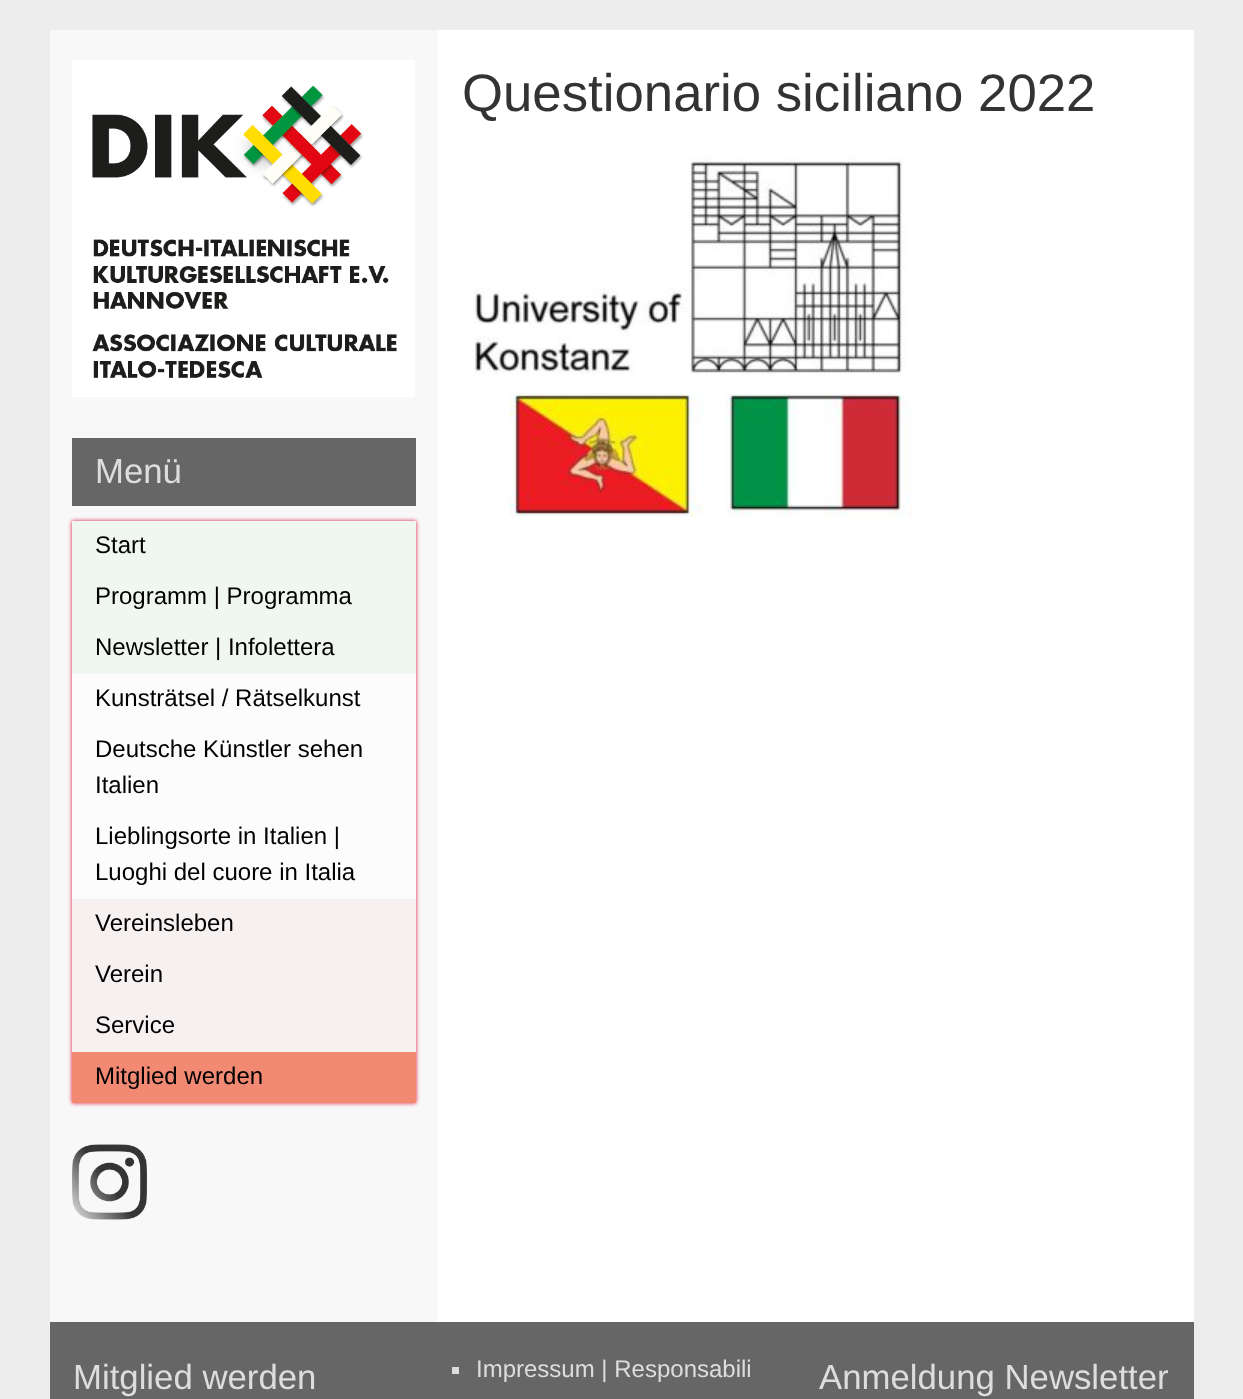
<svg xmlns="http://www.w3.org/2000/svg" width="1243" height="1399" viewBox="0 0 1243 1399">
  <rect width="100%" height="100%" fill="#ededed"/>
  <path d="M438 30h756v1292H438z" fill="#fff"/>
  <image x="474" y="156" width="438" height="362" href="img/1.png"/>
  <path d="M50 30h388v1292H50z" fill="#f8f8f8"/>
  <image x="72" y="60" width="343" height="337" href="img/2.png"/>
  <path d="M72 438h344v68H72z" fill="#666"/>
  <path d="M72 521h344v582H72z" fill="#dc143c" filter="blur(2px)"/>
  <path d="M72 521h344v153H72z" fill="#f0f7f0"/>
  <path d="M72 674h344v225H72z" fill="#fcfcfc"/>
  <path d="M72 899h344v153H72z" fill="#f7f0f0"/>
  <path d="M72 1052h344v51H72z" fill="#f18973"/>
  <image x="72" y="1144" width="75" height="76" href="img/3.png"/>
  <path d="M50 1322h1144v77H50z" fill="#666"/>
  <path d="M452 1367h7v7H452z" fill="#ddd"/>
  <text x="462" y="111" font-family="Liberation Sans" font-size="52.75" fill="#333">Questionario siciliano 2022</text>
  <text x="95" y="483" font-family="Liberation Sans" font-size="34.75" fill="#ddd">Menü</text>
  <g font-family="Liberation Sans" font-size="24" fill="#000">
    <text x="95" y="553">Start</text>
    <text x="95" y="604">Programm | Programma</text>
    <text x="95" y="655">Newsletter | Infolettera</text>
    <text x="95" y="706">Kunsträtsel / Rätselkunst</text>
    <text x="95" y="757">Deutsche Künstler sehen</text>
    <text x="95" y="793">Italien</text>
    <text x="95" y="844">Lieblingsorte in Italien |</text>
    <text x="95" y="880">Luoghi del cuore in Italia</text>
    <text x="95" y="931">Vereinsleben</text>
    <text x="95" y="982">Verein</text>
    <text x="95" y="1033">Service</text>
    <text x="95" y="1084">Mitglied werden</text>
  </g>
  <text x="73" y="1389" font-family="Liberation Sans" font-size="34.75" fill="#ddd">Mitglied werden</text>
  <text x="476" y="1377" font-family="Liberation Sans" font-size="24" fill="#ddd">Impressum | Responsabili</text>
  <text x="819" y="1389" font-family="Liberation Sans" font-size="34.75" fill="#ddd">Anmeldung Newsletter</text>
</svg>
